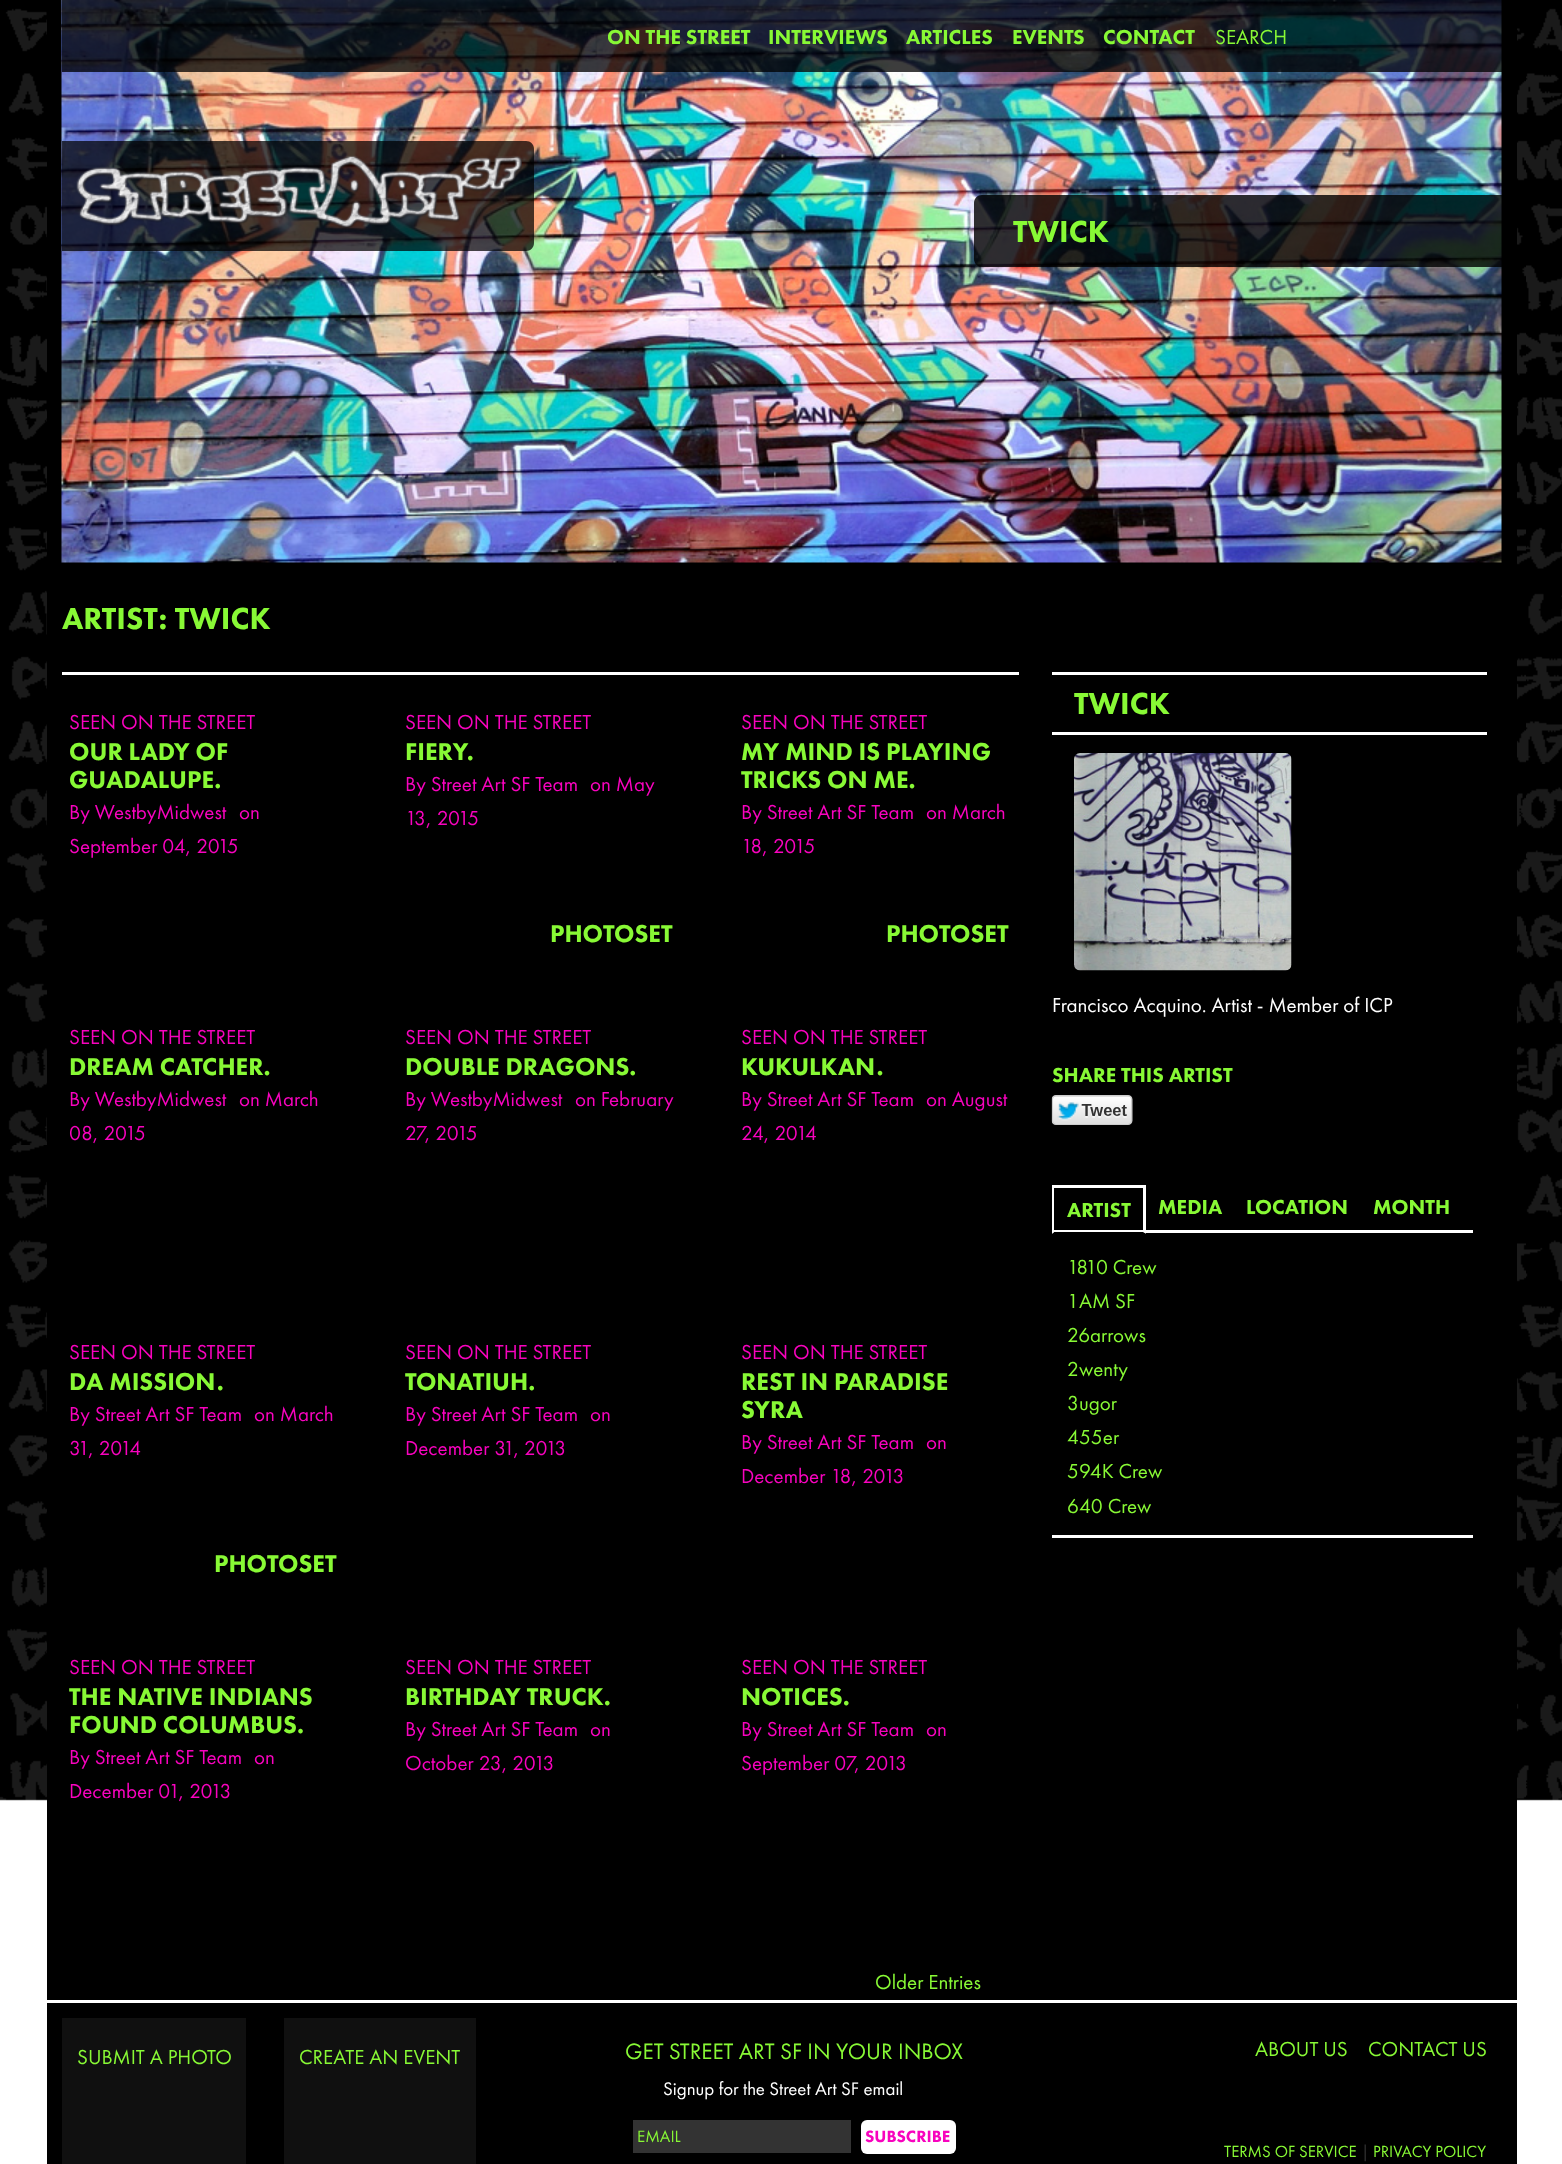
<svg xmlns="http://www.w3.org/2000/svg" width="1562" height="2164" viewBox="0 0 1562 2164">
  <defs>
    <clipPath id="clip1"><path d="M608 0h606v74H608z"/></clipPath>
  </defs>
  <rect width="100%" height="100%" fill="#fff"/>
  <image x="0" y="0" width="1562" height="1801" href="img/1.png"/>
  <path d="M47 5h1470v1995H47z" fill="#000"/>
  <image x="61" y="0" width="1441" height="563" href="img/2.png"/>
  <path d="M62 0h1440v72H62z" fill="#000000c2"/>
  <path d="M62 141H526C530.5 141 534 144.5 534 149V243C534 247.5 530.5 251 526 251H62Z" fill="#000000b8"/>
  <image x="76" y="155" width="446" height="73" href="img/3.png"/>
  <path d="M982 195H1502V267H982C977.5 267 974 263.5 974 259V203C974 198.5 977.5 195 982 195Z" fill="#000000cf"/>
  <path d="M62 672h957v3H62z" fill="#fff"/>
  <path d="M1052 672h435v3H1052z" fill="#fff"/>
  <path d="M1052 732h435v3H1052z" fill="#fff"/>
  <image x="1074" y="753" width="218" height="218" href="img/4.png"/>
  <image x="1051" y="1095" width="82" height="30" href="img/5.png"/>
  <path d="M1052 1230h421v3H1052z" fill="#fff"/>
  <path d="M1052 1185h94v3H1052z" fill="#fff"/>
  <path d="M1146 1185V1234L1143 1232V1188Z" fill="#fff"/>
  <path d="M1146 1234H1052L1054 1232H1143Z" fill="#000"/>
  <path d="M1052 1234V1185L1054 1188V1232Z" fill="#fff"/>
  <path d="M1052 1535h421v3H1052z" fill="#fff"/>
  <path d="M47 2003h1470v161H47z" fill="#000"/>
  <path d="M62 2018h184v146H62z" fill="#101010"/>
  <path d="M284 2018h192v146H284z" fill="#101010"/>
  <path d="M633 2120h218v33H633z" fill="#333"/>
  <rect x="861" y="2120" width="95" height="34" rx="6" fill="#fff"/>
  <g clip-path="url(#clip1)">
    <text x="607" y="44" font-family="Futura PT" font-size="21" font-weight="900" fill="#88f935">ON THE STREET</text>
  </g>
  <g font-family="Futura PT" font-size="21" font-weight="900" fill="#88f935">
    <text x="768" y="44">INTERVIEWS</text>
    <text x="906" y="44">ARTICLES</text>
    <text x="1012" y="44">EVENTS</text>
    <text x="1103" y="44">CONTACT</text>
  </g>
  <text x="1215" y="44" font-family="Futura PT" font-size="21" fill="#88f935">SEARCH</text>
  <g font-family="Futura PT" font-size="31.5" font-weight="900" fill="#88f935">
    <text x="1013" y="242">TWICK</text>
    <text x="62" y="629">ARTIST: TWICK</text>
  </g>
  <text x="69" y="729" font-family="Futura PT" font-size="21" fill="#f803be">SEEN ON THE STREET</text>
  <g font-family="Futura PT" font-size="25.25" font-weight="900" fill="#88f935">
    <text x="69" y="760">OUR LADY OF</text>
    <text x="69" y="788">GUADALUPE.</text>
  </g>
  <g font-family="Futura PT" font-size="21" fill="#f803be">
    <text x="69" y="819">By WestbyMidwest</text>
    <text x="239" y="819">on</text>
    <text x="69" y="853">September 04, 2015</text>
    <text x="405" y="729">SEEN ON THE STREET</text>
  </g>
  <text x="405" y="760" font-family="Futura PT" font-size="25.25" font-weight="900" fill="#88f935">FIERY.</text>
  <g font-family="Futura PT" font-size="21" fill="#f803be">
    <text x="405" y="791">By Street Art SF Team</text>
    <text x="590" y="791">on May</text>
    <text x="405" y="825">13, 2015</text>
  </g>
  <text x="550" y="942" font-family="Futura PT" font-size="25.25" font-weight="900" fill="#88f935">PHOTOSET</text>
  <text x="741" y="729" font-family="Futura PT" font-size="21" fill="#f803be">SEEN ON THE STREET</text>
  <g font-family="Futura PT" font-size="25.25" font-weight="900" fill="#88f935">
    <text x="741" y="760">MY MIND IS PLAYING</text>
    <text x="741" y="788">TRICKS ON ME.</text>
  </g>
  <g font-family="Futura PT" font-size="21" fill="#f803be">
    <text x="741" y="819">By Street Art SF Team</text>
    <text x="926" y="819">on March</text>
    <text x="741" y="853">18, 2015</text>
  </g>
  <text x="886" y="942" font-family="Futura PT" font-size="25.25" font-weight="900" fill="#88f935">PHOTOSET</text>
  <text x="69" y="1044" font-family="Futura PT" font-size="21" fill="#f803be">SEEN ON THE STREET</text>
  <text x="69" y="1075" font-family="Futura PT" font-size="25.25" font-weight="900" fill="#88f935">DREAM CATCHER.</text>
  <g font-family="Futura PT" font-size="21" fill="#f803be">
    <text x="69" y="1106">By WestbyMidwest</text>
    <text x="239" y="1106">on March</text>
    <text x="69" y="1140">08, 2015</text>
    <text x="405" y="1044">SEEN ON THE STREET</text>
  </g>
  <text x="405" y="1075" font-family="Futura PT" font-size="25.25" font-weight="900" fill="#88f935">DOUBLE DRAGONS.</text>
  <g font-family="Futura PT" font-size="21" fill="#f803be">
    <text x="405" y="1106">By WestbyMidwest</text>
    <text x="575" y="1106">on February</text>
    <text x="405" y="1140">27, 2015</text>
    <text x="741" y="1044">SEEN ON THE STREET</text>
  </g>
  <text x="741" y="1075" font-family="Futura PT" font-size="25.25" font-weight="900" fill="#88f935">KUKULKAN.</text>
  <g font-family="Futura PT" font-size="21" fill="#f803be">
    <text x="741" y="1106">By Street Art SF Team</text>
    <text x="926" y="1106">on August</text>
    <text x="741" y="1140">24, 2014</text>
    <text x="69" y="1359">SEEN ON THE STREET</text>
  </g>
  <text x="69" y="1390" font-family="Futura PT" font-size="25.25" font-weight="900" fill="#88f935">DA MISSION.</text>
  <g font-family="Futura PT" font-size="21" fill="#f803be">
    <text x="69" y="1421">By Street Art SF Team</text>
    <text x="254" y="1421">on March</text>
    <text x="69" y="1455">31, 2014</text>
  </g>
  <text x="214" y="1572" font-family="Futura PT" font-size="25.25" font-weight="900" fill="#88f935">PHOTOSET</text>
  <text x="405" y="1359" font-family="Futura PT" font-size="21" fill="#f803be">SEEN ON THE STREET</text>
  <text x="405" y="1390" font-family="Futura PT" font-size="25.25" font-weight="900" fill="#88f935">TONATIUH.</text>
  <g font-family="Futura PT" font-size="21" fill="#f803be">
    <text x="405" y="1421">By Street Art SF Team</text>
    <text x="590" y="1421">on</text>
    <text x="405" y="1455">December 31, 2013</text>
    <text x="741" y="1359">SEEN ON THE STREET</text>
  </g>
  <g font-family="Futura PT" font-size="25.25" font-weight="900" fill="#88f935">
    <text x="741" y="1390">REST IN PARADISE</text>
    <text x="741" y="1418">SYRA</text>
  </g>
  <g font-family="Futura PT" font-size="21" fill="#f803be">
    <text x="741" y="1449">By Street Art SF Team</text>
    <text x="926" y="1449">on</text>
    <text x="741" y="1483">December 18, 2013</text>
    <text x="69" y="1674">SEEN ON THE STREET</text>
  </g>
  <g font-family="Futura PT" font-size="25.25" font-weight="900" fill="#88f935">
    <text x="69" y="1705">THE NATIVE INDIANS</text>
    <text x="69" y="1733">FOUND COLUMBUS.</text>
  </g>
  <g font-family="Futura PT" font-size="21" fill="#f803be">
    <text x="69" y="1764">By Street Art SF Team</text>
    <text x="254" y="1764">on</text>
    <text x="69" y="1798">December 01, 2013</text>
    <text x="405" y="1674">SEEN ON THE STREET</text>
  </g>
  <text x="405" y="1705" font-family="Futura PT" font-size="25.25" font-weight="900" fill="#88f935">BIRTHDAY TRUCK.</text>
  <g font-family="Futura PT" font-size="21" fill="#f803be">
    <text x="405" y="1736">By Street Art SF Team</text>
    <text x="590" y="1736">on</text>
    <text x="405" y="1770">October 23, 2013</text>
    <text x="741" y="1674">SEEN ON THE STREET</text>
  </g>
  <text x="741" y="1705" font-family="Futura PT" font-size="25.25" font-weight="900" fill="#88f935">NOTICES.</text>
  <g font-family="Futura PT" font-size="21" fill="#f803be">
    <text x="741" y="1736">By Street Art SF Team</text>
    <text x="926" y="1736">on</text>
    <text x="741" y="1770">September 07, 2013</text>
  </g>
  <text x="875" y="1989" font-family="Futura PT" font-size="21" fill="#88f935">Older Entries</text>
  <text x="1074" y="714" font-family="Futura PT" font-size="31.5" font-weight="900" fill="#88f935">TWICK</text>
  <text x="1052" y="1012" font-family="Futura PT" font-size="21" fill="#fff">Francisco Acquino. Artist - Member of ICP</text>
  <g font-family="Futura PT" font-size="21" font-weight="900" fill="#88f935">
    <text x="1052" y="1082">SHARE THIS ARTIST</text>
    <text x="1067" y="1217">ARTIST</text>
    <text x="1158" y="1214">MEDIA</text>
    <text x="1246" y="1214">LOCATION</text>
    <text x="1373" y="1214">MONTH</text>
  </g>
  <g font-family="Futura PT" font-size="21" fill="#88f935">
    <text x="1067" y="1274">1810 Crew</text>
    <text x="1067" y="1308">1AM SF</text>
    <text x="1067" y="1342">26arrows</text>
    <text x="1067" y="1376">2wenty</text>
    <text x="1067" y="1410">3ugor</text>
    <text x="1067" y="1444">455er</text>
    <text x="1067" y="1478">594K Crew</text>
    <text x="1067" y="1513">640 Crew</text>
    <text x="77" y="2064">SUBMIT A PHOTO</text>
    <text x="299" y="2064">CREATE AN EVENT</text>
  </g>
  <text x="625" y="2059" font-family="Futura PT" font-size="23.1" fill="#88f935">GET STREET ART SF IN YOUR INBOX</text>
  <text x="663" y="2095" font-family="Futura PT" font-size="18.9" fill="#fff">Signup for the Street Art SF email</text>
  <text x="637" y="2142" font-family="Futura PT" font-size="17" fill="#88f935">EMAIL</text>
  <text x="865" y="2142" font-family="Futura PT" font-size="17" font-weight="900" fill="#f803be">SUBSCRIBE</text>
  <g font-family="Futura PT" font-size="21" fill="#88f935">
    <text x="1255" y="2056">ABOUT US</text>
    <text x="1368" y="2056">CONTACT US</text>
  </g>
  <text x="1224" y="2157" font-family="Futura PT" font-size="16.75" fill="#88f935">TERMS OF SERVICE</text>
  <text x="1361" y="2157" font-family="Futura PT" font-size="16.75" fill="#333">|</text>
  <text x="1373" y="2157" font-family="Futura PT" font-size="16.75" fill="#88f935">PRIVACY POLICY</text>
</svg>
